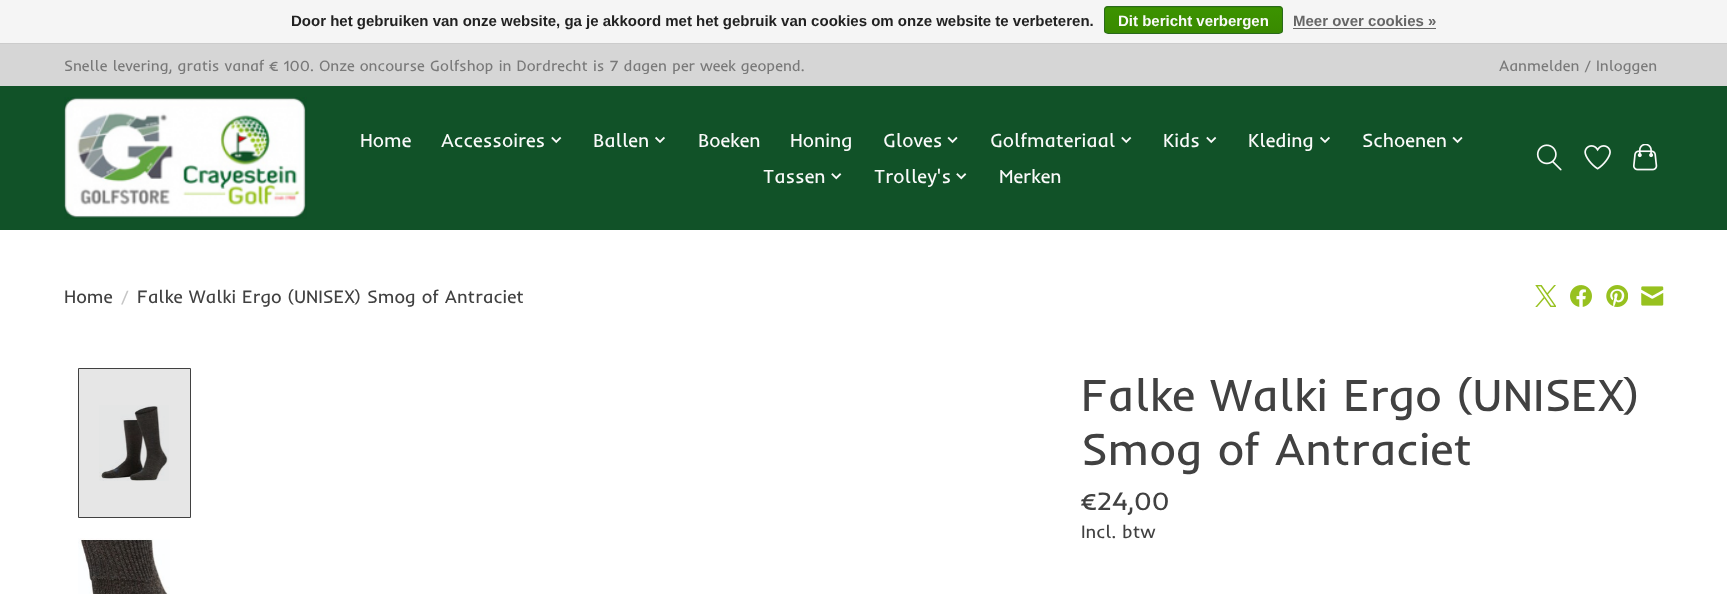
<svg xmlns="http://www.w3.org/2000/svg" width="1727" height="594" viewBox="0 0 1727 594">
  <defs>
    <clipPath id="clip1"><rect x="1104" y="6" width="179" height="28" rx="4"/></clipPath>
    <linearGradient id="g1" gradientUnits="userSpaceOnUse" x1="1193" y1="-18" x2="1193" y2="7.5"><stop offset="0" stop-color="#3c9300"/><stop offset="1" stop-color="#398a00"/></linearGradient>
    <linearGradient id="g2" gradientUnits="userSpaceOnUse" x1="1193" y1="7.5" x2="1193" y2="33"><stop offset="0" stop-color="#3c9300"/><stop offset="1" stop-color="#398a00"/></linearGradient>
  </defs>
  <rect width="100%" height="100%" fill="#fff"/>
  <path d="M79 369h111v148H79z" fill="#e6e6e6"/>
  <path d="M0 0h1727v43H0z" fill="#f5f5f5"/>
  <path d="M0 43h1727v1H0z" fill="#ccc"/>
  <g clip-path="url(#clip1)">
    <path d="M1104 6h179v2H1104z" fill="url(#g1)"/>
    <path d="M1104 8h179v25H1104z" fill="url(#g2)"/>
  </g>
  <rect x="1104.5" y="6.5" width="178" height="27" rx="3.5" fill="none" stroke="#29691d"/>
  <path d="M1293 28h143v1H1293z" fill="#666"/>
  <path d="M0 86h1727v144H0z" fill="#115228"/>
  <path d="M0 44h1727v42H0z" fill="#d6d6d6"/>
  <image x="64" y="97" width="243" height="122" href="img/1.png"/>
  <image x="551" y="136" width="11" height="8" href="img/2.png"/>
  <image x="655" y="136" width="10" height="7" href="img/3.png"/>
  <image x="947" y="136" width="11" height="8" href="img/4.png"/>
  <image x="1121" y="136" width="11" height="8" href="img/2.png"/>
  <image x="1206" y="136" width="11" height="8" href="img/2.png"/>
  <image x="1320" y="136" width="10" height="7" href="img/3.png"/>
  <image x="1452" y="136" width="11" height="8" href="img/4.png"/>
  <image x="831" y="173" width="11" height="7" href="img/5.png"/>
  <image x="956" y="173" width="11" height="7" href="img/5.png"/>
  <image x="1536" y="144" width="26" height="27" href="img/6.png"/>
  <image x="1584" y="145" width="27" height="25" href="img/7.png"/>
  <image x="1633" y="144" width="25" height="27" href="img/8.png"/>
  <image x="1535" y="285" width="21" height="22" href="img/9.png"/>
  <image x="1570" y="285" width="22" height="22" href="img/10.png"/>
  <image x="1606" y="285" width="22" height="22" href="img/11.png"/>
  <image x="1641" y="286" width="23" height="20" href="img/12.png"/>
  <image x="99" y="405" width="70" height="76" href="img/13.png"/>
  <path d="M78.5 368.5h112v149H78.5z" fill="none" stroke="#414141"/>
  <image x="78" y="538" width="92" height="56" href="img/14.png"/>
  <text x="291" y="26" font-family="Liberation Sans" font-size="15" font-weight="bold" fill="#222">Door het gebruiken van onze website, ga je akkoord met het gebruik van cookies om onze website te verbeteren.</text>
  <text x="1118" y="26" font-family="Liberation Sans" font-size="15" font-weight="bold" fill="#fafafa">Dit bericht verbergen</text>
  <text x="1293" y="26" font-family="Liberation Sans" font-size="15" font-weight="bold" fill="#666">Meer over cookies »</text>
  <g font-family="Inder" font-size="15.3" fill="#797979">
    <text x="64" y="71">Snelle levering, gratis vanaf € 100. Onze oncourse Golfshop in Dordrecht is 7 dagen per week geopend.</text>
    <text x="1499" y="71">Aanmelden / Inloggen</text>
  </g>
  <g font-family="Inder" font-size="19.25" fill="#fafafa">
    <text x="360" y="147">Home</text>
    <text x="441" y="147">Accessoires</text>
    <text x="593" y="147">Ballen</text>
    <text x="698" y="147">Boeken</text>
    <text x="790" y="147">Honing</text>
    <text x="883" y="147">Gloves</text>
    <text x="990" y="147">Golfmateriaal</text>
    <text x="1163" y="147">Kids</text>
    <text x="1248" y="147">Kleding</text>
    <text x="1362" y="147">Schoenen</text>
    <text x="763" y="183">Tassen</text>
    <text x="874" y="183">Trolley's</text>
    <text x="999" y="183">Merken</text>
  </g>
  <text x="64" y="303" font-family="Inder" font-size="18.3" fill="#414141">Home</text>
  <text x="121" y="303" font-family="Inder" font-size="18.3" fill="#c6c6c6">/</text>
  <text x="137" y="303" font-family="Inder" font-size="18.3" fill="#414141">Falke Walki Ergo (UNISEX) Smog of Antraciet</text>
  <g font-family="Inder" font-size="45.6" fill="#414141">
    <text x="1081" y="411">Falke Walki Ergo (UNISEX)</text>
    <text x="1081" y="465">Smog of Antraciet</text>
  </g>
  <text x="1081" y="510" font-family="Inder" font-size="26.5" fill="#414141">€24,00</text>
  <text x="1081" y="538" font-family="Inder" font-size="18.3" fill="#414141">Incl. btw</text>
</svg>
